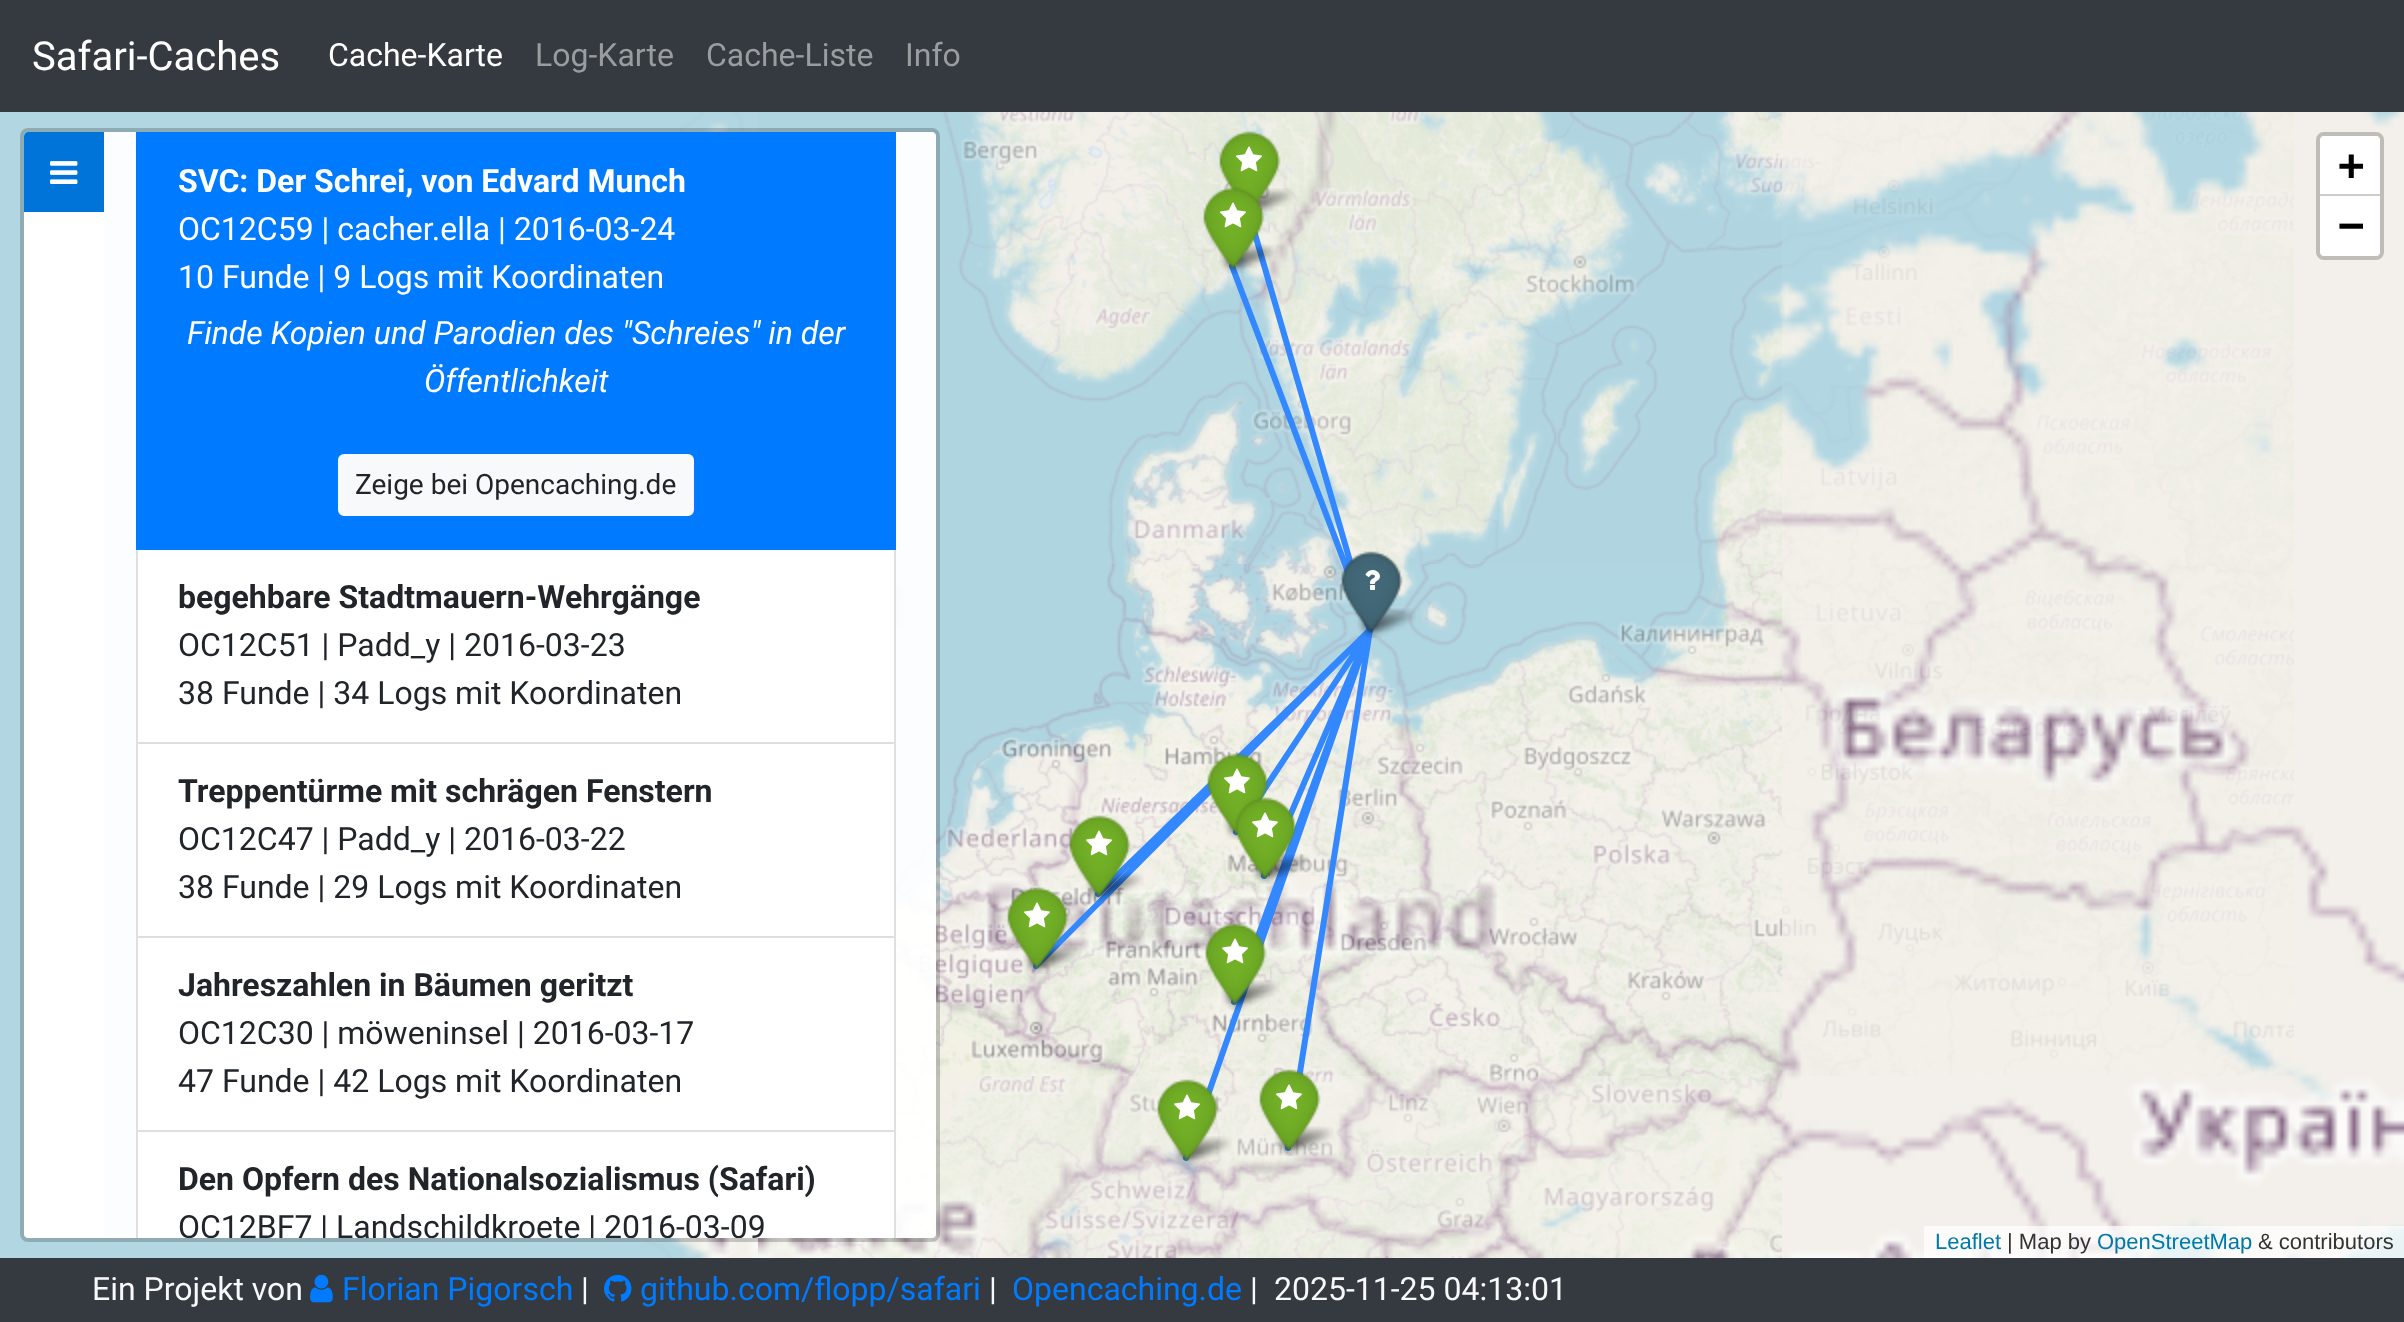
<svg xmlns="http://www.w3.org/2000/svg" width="2404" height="1322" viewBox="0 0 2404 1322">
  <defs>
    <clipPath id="clip1"><path d="M104 132h832v1106H104z"/></clipPath>
  </defs>
  <rect width="100%" height="100%" fill="#fff"/>
  <path d="M0 0h2404v112H0z" fill="#343a40"/>
  <image x="0" y="112" width="758" height="1146" href="img/2.png"/>
  <image x="758" y="112" width="1646" height="1146" href="img/3.png"/>
  <image x="347" y="112" width="397" height="20" href="img/4.png"/>
  <image x="758" y="112" width="512" height="452" href="img/5.png"/>
  <image x="896" y="564" width="374" height="512" href="img/8.png"/>
  <image x="510" y="1238" width="248" height="20" href="img/11.png"/>
  <image x="758" y="1076" width="512" height="182" href="img/12.png"/>
  <rect x="22" y="130" width="916" height="1110" rx="6" fill="none" stroke="#00000033" stroke-width="4"/>
  <path d="M28 132H104V1238H28C26 1238 24 1236 24 1234V136C24 134 26 132 28 132Z" fill="#fff"/>
  <path d="M28 132H104V212H24V136C24 134 26 132 28 132Z" fill="#0074d9"/>
  <image x="50" y="161" width="28" height="23" href="img/1.png"/>
  <path d="M104 132H932C934 132 936 134 936 136V1234C936 1236 934 1238 932 1238H104Z" fill="#fffffff2"/>
  <path d="M137 549h758v194H137z" fill="#fff" stroke="#dfdfdf" stroke-width="2"/>
  <path d="M136 132h760v418H136z" fill="#007bff"/>
  <rect x="339" y="455" width="354" height="60" rx="5" fill="#f8f9fa" stroke="#f8f9fa" stroke-width="2"/>
  <path d="M137 743h758v194H137z" fill="#fff" stroke="#dfdfdf" stroke-width="2"/>
  <path d="M137 937h758v194H137z" fill="#fff" stroke="#dfdfdf" stroke-width="2"/>
  <path d="M138 1132h756v106H138z" fill="#fff"/>
  <path d="M136 1130V1238H138V1132H894V1238H896V1130Z" fill="#dfdfdf"/>
  <image x="1270" y="112" width="512" height="452" href="img/6.png"/>
  <image x="1782" y="112" width="512" height="452" href="img/7.png"/>
  <image x="1270" y="564" width="512" height="512" href="img/9.png"/>
  <image x="1782" y="564" width="512" height="512" href="img/10.png"/>
  <image x="1270" y="1076" width="512" height="182" href="img/13.png"/>
  <path d="M1370 630L1186 1158M1370 630L1236 832M1370 630L1234 1002M1370 630L1264 876M1370 630L1288 1148M1370 630L1232 266M1370 630L1036 966M1370 630L1248 210M1370 630L1098 894" fill="none" stroke="#38f" stroke-width="6" stroke-linecap="round" stroke-linejoin="round"/>
  <image x="1255" y="188" width="39" height="27" href="img/26.png"/>
  <image x="1219" y="131" width="62" height="74" href="img/14.png"/>
  <image x="1236" y="146" width="26" height="26" href="img/15.png"/>
  <image x="1219" y="244" width="59" height="30" href="img/27.png"/>
  <image x="1203" y="187" width="62" height="82" href="img/16.png"/>
  <image x="1220" y="202" width="26" height="26" href="img/15.png"/>
  <image x="1357" y="608" width="59" height="30" href="img/28.png"/>
  <image x="1341" y="551" width="62" height="82" href="img/17.png"/>
  <image x="1365" y="570" width="15" height="20" href="img/18.png"/>
  <image x="1223" y="815" width="20" height="25" href="img/29.png"/>
  <image x="1207" y="753" width="62" height="82" href="img/19.png"/>
  <image x="1224" y="768" width="26" height="26" href="img/15.png"/>
  <image x="1085" y="872" width="59" height="30" href="img/31.png"/>
  <image x="1069" y="815" width="62" height="82" href="img/20.png"/>
  <image x="1086" y="830" width="26" height="26" href="img/15.png"/>
  <image x="1251" y="854" width="59" height="30" href="img/30.png"/>
  <image x="1235" y="797" width="62" height="82" href="img/21.png"/>
  <image x="1252" y="812" width="26" height="26" href="img/15.png"/>
  <image x="1023" y="944" width="59" height="30" href="img/32.png"/>
  <image x="1007" y="887" width="62" height="82" href="img/22.png"/>
  <image x="1024" y="902" width="26" height="26" href="img/15.png"/>
  <image x="1221" y="980" width="59" height="30" href="img/33.png"/>
  <image x="1205" y="923" width="62" height="82" href="img/23.png"/>
  <image x="1222" y="938" width="26" height="26" href="img/15.png"/>
  <image x="1173" y="1136" width="59" height="30" href="img/34.png"/>
  <image x="1157" y="1079" width="62" height="82" href="img/24.png"/>
  <image x="1174" y="1094" width="26" height="26" href="img/15.png"/>
  <image x="1275" y="1126" width="59" height="30" href="img/35.png"/>
  <image x="1259" y="1069" width="62" height="82" href="img/25.png"/>
  <image x="1276" y="1084" width="26" height="26" href="img/15.png"/>
  <rect x="2318" y="134" width="64" height="124" rx="6" fill="none" stroke="#c0bdb9" stroke-width="4"/>
  <path d="M2324 136H2376C2378 136 2380 138 2380 140V196H2320V140C2320 138 2322 136 2324 136Z" fill="#fff"/>
  <path d="M2320 194h60v2H2320z" fill="#ccc"/>
  <path d="M2320 196H2380V252C2380 254 2378 256 2376 256H2324C2322 256 2320 254 2320 252Z" fill="#fff"/>
  <path d="M1924 1226h480v32H1924z" fill="#ffffffb3"/>
  <path d="M0 1258h2404v64H0z" fill="#343a40"/>
  <image x="310" y="1274" width="23" height="29" href="img/36.png"/>
  <image x="604" y="1274" width="28" height="28" href="img/37.png"/>
  <text x="32" y="70" font-family="Roboto" font-size="40" fill="#fff">Safari-Caches</text>
  <text x="328" y="66" font-family="Roboto" font-size="32" fill="#fff">Cache-Karte</text>
  <g font-family="Roboto" font-size="32" fill="#9a9da0">
    <text x="535" y="66">Log-Karte</text>
    <text x="706" y="66">Cache-Liste</text>
    <text x="905" y="66">Info</text>
  </g>
  <text x="178" y="192" font-family="Roboto" font-size="32" font-weight="bold" fill="#fff">SVC: Der Schrei, von Edvard Munch</text>
  <g font-family="Roboto" font-size="32" fill="#fff">
    <text x="178" y="240">OC12C59 | cacher.ella | 2016-03-24</text>
    <text x="178" y="288">10 Funde | 9 Logs mit Koordinaten</text>
  </g>
  <g font-family="Roboto" font-size="32" font-style="italic" fill="#fff">
    <text x="187" y="344">Finde Kopien und Parodien des "Schreies" in der</text>
    <text x="424" y="392">Öffentlichkeit</text>
  </g>
  <text x="355" y="494" font-family="Roboto" font-size="28" fill="#212529">Zeige bei Opencaching.de</text>
  <text x="178" y="608" font-family="Roboto" font-size="32" font-weight="bold" fill="#212529">begehbare Stadtmauern-Wehrgänge</text>
  <g font-family="Roboto" font-size="32" fill="#212529">
    <text x="178" y="656">OC12C51 | Padd_y | 2016-03-23</text>
    <text x="178" y="704">38 Funde | 34 Logs mit Koordinaten</text>
  </g>
  <text x="178" y="802" font-family="Roboto" font-size="32" font-weight="bold" fill="#212529">Treppentürme mit schrägen Fenstern</text>
  <g font-family="Roboto" font-size="32" fill="#212529">
    <text x="178" y="850">OC12C47 | Padd_y | 2016-03-22</text>
    <text x="178" y="898">38 Funde | 29 Logs mit Koordinaten</text>
  </g>
  <text x="178" y="996" font-family="Roboto" font-size="32" font-weight="bold" fill="#212529">Jahreszahlen in Bäumen geritzt</text>
  <g font-family="Roboto" font-size="32" fill="#212529">
    <text x="178" y="1044">OC12C30 | möweninsel | 2016-03-17</text>
    <text x="178" y="1092">47 Funde | 42 Logs mit Koordinaten</text>
  </g>
  <text x="178" y="1190" font-family="Roboto" font-size="32" font-weight="bold" fill="#212529">Den Opfern des Nationalsozialismus (Safari)</text>
  <g clip-path="url(#clip1)">
    <text x="178" y="1238" font-family="Roboto" font-size="32" fill="#212529">OC12BF7 | Landschildkroete | 2016-03-09</text>
  </g>
  <g font-family="DejaVu Sans Mono" font-size="44" font-weight="bold" fill="#000">
    <text x="2338" y="180">+</text>
    <text x="2338" y="240">−</text>
  </g>
  <text x="1935" y="1249" font-family="Liberation Sans" font-size="22" fill="#0078a8">Leaflet</text>
  <text x="2007" y="1249" font-family="Liberation Sans" font-size="22" fill="#333">| Map by</text>
  <text x="2097" y="1249" font-family="Liberation Sans" font-size="22" fill="#0078a8">OpenStreetMap</text>
  <text x="2258" y="1249" font-family="Liberation Sans" font-size="22" fill="#333">&amp; contributors</text>
  <text x="92" y="1300" font-family="Roboto" font-size="32" fill="#f8f9fa">Ein Projekt von</text>
  <text x="342" y="1300" font-family="Roboto" font-size="32" fill="#007bff">Florian Pigorsch</text>
  <text x="581" y="1300" font-family="Roboto" font-size="32" fill="#f8f9fa">|</text>
  <text x="640" y="1300" font-family="Roboto" font-size="32" fill="#007bff">github.com/flopp/safari</text>
  <text x="989" y="1300" font-family="Roboto" font-size="32" fill="#f8f9fa">|</text>
  <text x="1012" y="1300" font-family="Roboto" font-size="32" fill="#007bff">Opencaching.de</text>
  <g font-family="Roboto" font-size="32" fill="#f8f9fa">
    <text x="1250" y="1300">|</text>
    <text x="1274" y="1300">2025-11-25 04:13:01</text>
  </g>
</svg>
